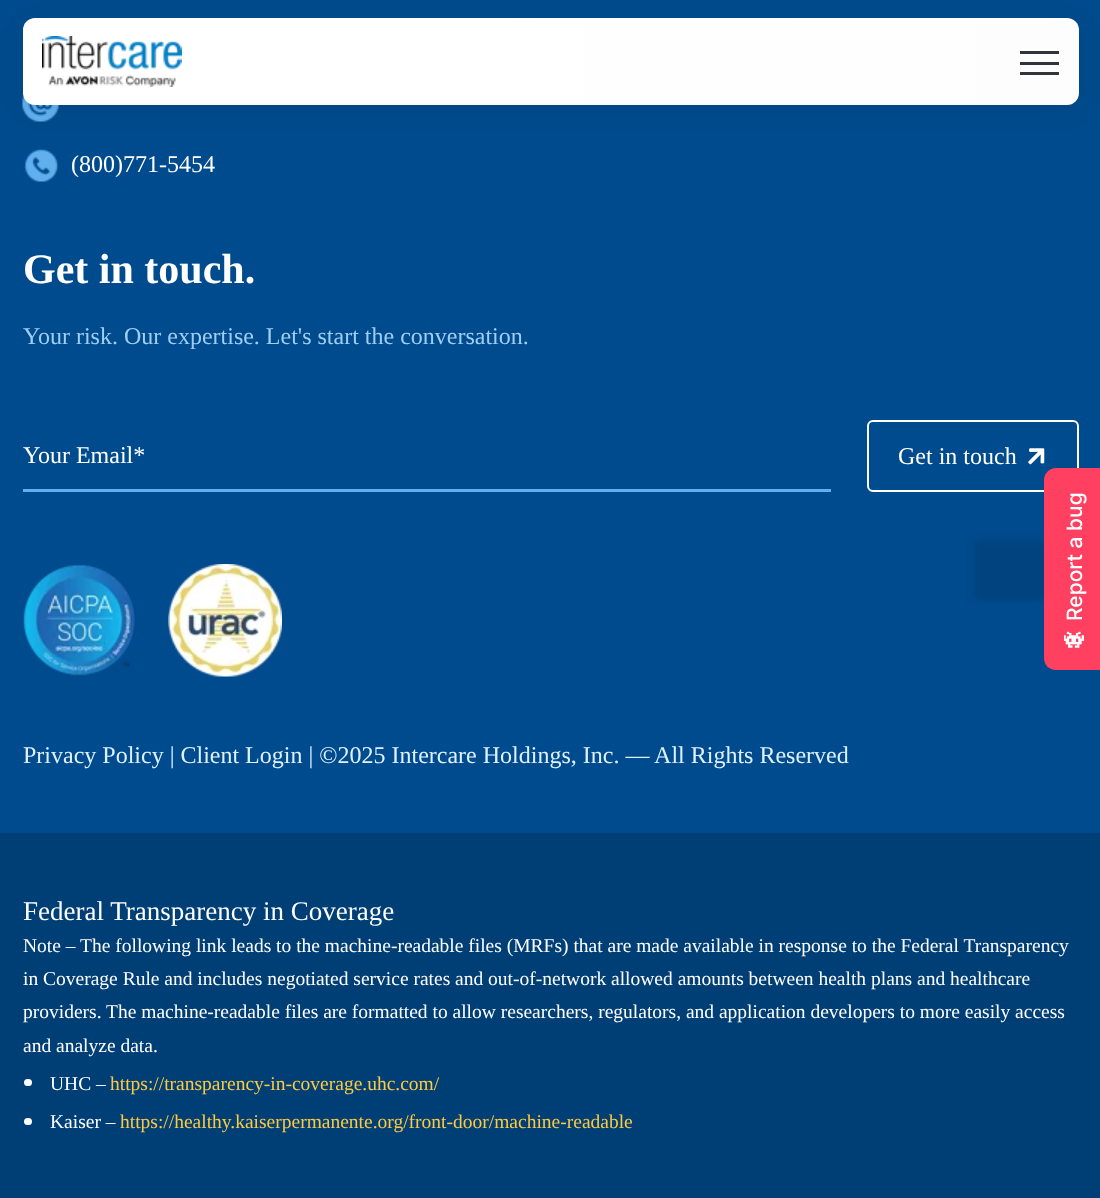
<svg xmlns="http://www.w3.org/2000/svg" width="1100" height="1198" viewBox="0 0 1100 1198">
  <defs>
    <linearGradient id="g1" gradientUnits="userSpaceOnUse" x1="23" y1="62" x2="1079" y2="61"><stop offset="0" stop-color="#fff"/><stop offset="0.4" stop-color="#fff"/><stop offset="1" stop-color="#fdfdfd"/></linearGradient>
  </defs>
  <rect width="100%" height="100%" fill="#003f76"/>
  <path d="M0 0h1100v833H0z" fill="#004b8d"/>
  <image x="22" y="94" width="37" height="28" href="img/2.png"/>
  <image x="24" y="148" width="35" height="34" href="img/3.png"/>
  <rect x="23" y="23" width="1056" height="87" rx="12" fill="#0000000f" filter="blur(13.5px)"/>
  <rect x="23" y="18" width="1056" height="87" rx="12" fill="url(#g1)"/>
  <image x="42" y="36" width="140" height="51" href="img/1.png"/>
  <path d="M1020 51h39v3H1020z" fill="#30343b"/>
  <path d="M1020 62h39v3H1020z" fill="#30343b"/>
  <path d="M1020 72h39v3H1020z" fill="#30343b"/>
  <path d="M23 489h808v3H23z" fill="#61b0ee"/>
  <image x="1028" y="448" width="17" height="17" href="img/4.png"/>
  <rect x="868" y="421" width="210" height="70" rx="5" fill="none" stroke="#fff" stroke-width="2"/>
  <image x="23" y="564" width="112" height="112" href="img/5.png"/>
  <image x="168" y="564" width="114" height="113" href="img/6.png"/>
  <rect x="24" y="1079" width="8" height="7" rx="3.5" fill="#fff"/>
  <rect x="24" y="1118" width="8" height="7" rx="3.5" fill="#fff"/>
  <path d="M974 540h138v60H974z" fill="#0000001a" filter="blur(4px)"/>
  <path d="M1044 658V480C1044 474 1049 468 1056 468H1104V670H1056C1049 670 1044 665 1044 658Z" fill="#ff4060"/>
  <image x="1064" y="631" width="20" height="17" href="img/7.png"/>
  <text x="71" y="172" font-family="Liberation Serif" font-size="24" fill="#fff">(800)771-5454</text>
  <text x="23" y="283" font-family="Liberation Serif" font-size="42" font-weight="bold" fill="#fff">Get in touch.</text>
  <text x="23" y="344" font-family="Liberation Serif" font-size="24" fill="#9fcef3">Your risk. Our expertise. Let's start the conversation.</text>
  <g font-family="Liberation Serif" font-size="24" fill="#fff">
    <text x="23" y="463">Your Email*</text>
    <text x="898" y="464">Get in touch</text>
  </g>
  <text x="23" y="763" font-family="Liberation Serif" font-size="24" fill="#dff1ff">Privacy Policy | Client Login | ©2025 Intercare Holdings, Inc. — All Rights Reserved</text>
  <text x="23" y="920" font-family="Liberation Serif" font-size="27" fill="#fff">Federal Transparency in Coverage</text>
  <g font-family="Liberation Serif" font-size="19.5" fill="#fff">
    <text x="23" y="952">Note – The following link leads to the machine-readable files (MRFs) that are made available in response to the Federal Transparency</text>
    <text x="23" y="985">in Coverage Rule and includes negotiated service rates and out-of-network allowed amounts between health plans and healthcare</text>
    <text x="23" y="1018">providers. The machine-readable files are formatted to allow researchers, regulators, and application developers to more easily access</text>
    <text x="23" y="1052">and analyze data.</text>
    <text x="50" y="1090">UHC –</text>
  </g>
  <text x="110" y="1090" font-family="Liberation Serif" font-size="19.5" fill="#ffc940">https://transparency-in-coverage.uhc.com/</text>
  <text x="50" y="1128" font-family="Liberation Serif" font-size="19.5" fill="#fff">Kaiser –</text>
  <text x="120" y="1128" font-family="Liberation Serif" font-size="19.5" fill="#ffc940">https://healthy.kaiserpermanente.org/front-door/machine-readable</text>
  <text x="1082" y="621" transform="rotate(-90 1082 621)" font-family="Inter" font-size="21" font-weight="500" fill="#fff">Report a bug</text>
</svg>
